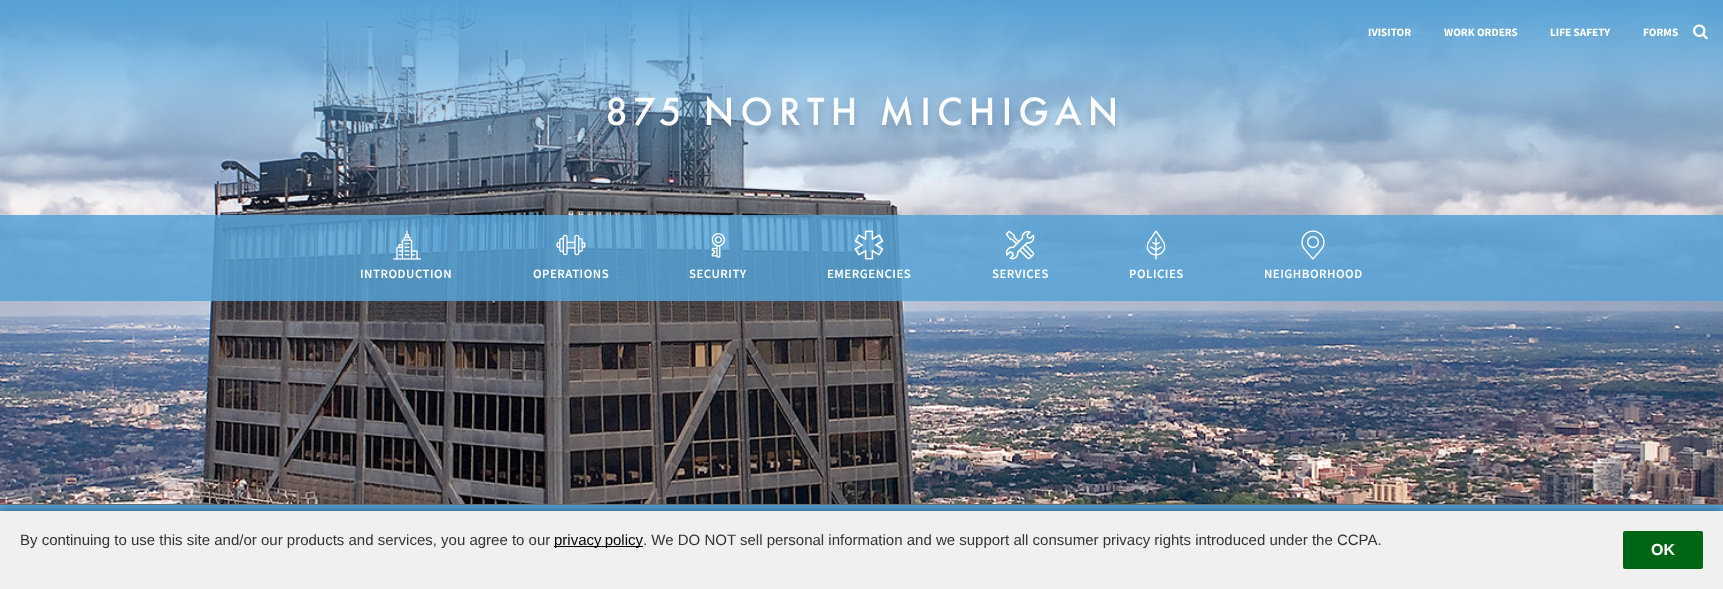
<svg xmlns="http://www.w3.org/2000/svg" width="1723" height="589" viewBox="0 0 1723 589">
  <rect width="100%" height="100%" fill="#fff"/>
  <image x="0" y="0" width="1723" height="504" href="img/1.png"/>
  <image x="1693" y="24" width="15" height="16" href="img/2.png"/>
  <image x="605" y="96" width="514" height="40" href="img/3.png"/>
  <path d="M0 215h1723v86H0z" fill="#56a2d6d9"/>
  <image x="393" y="230" width="28" height="30" href="img/4.png"/>
  <image x="556" y="234" width="30" height="22" href="img/5.png"/>
  <image x="711" y="233" width="14" height="25" href="img/6.png"/>
  <image x="854" y="230" width="30" height="30" href="img/7.png"/>
  <image x="1005" y="230" width="30" height="30" href="img/8.png"/>
  <image x="1146" y="230" width="20" height="30" href="img/9.png"/>
  <image x="1301" y="230" width="24" height="30" href="img/10.png"/>
  <path d="M0 505h1723v6H0z" fill="#56a2d6"/>
  <path d="M0 504h1723v1H0z" fill="#707070"/>
  <path d="M0 511h1723v78H0z" fill="#00000080" filter="blur(5px)"/>
  <path d="M0 511h1723v78H0z" fill="#f0f0f0"/>
  <path d="M554 546h89v1H554z" fill="#000"/>
  <rect x="1623" y="531" width="80" height="38" rx="2" fill="#006616"/>
  <g font-family="Source Sans Pro" font-size="11.25" font-weight="bold" fill="#fff">
    <text x="1368" y="36">IVISITOR</text>
    <text x="1444" y="36">WORK ORDERS</text>
    <text x="1550" y="36">LIFE SAFETY</text>
    <text x="1643" y="36">FORMS</text>
  </g>
  <g font-family="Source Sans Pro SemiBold" font-size="12.75" font-weight="600" letter-spacing="0.5" fill="#fff">
    <text x="360" y="278">INTRODUCTION</text>
    <text x="533" y="278">OPERATIONS</text>
    <text x="689" y="278">SECURITY</text>
    <text x="827" y="278">EMERGENCIES</text>
    <text x="992" y="278">SERVICES</text>
    <text x="1129" y="278">POLICIES</text>
    <text x="1264" y="278">NEIGHBORHOOD</text>
  </g>
  <text x="20" y="545" font-family="Liberation Sans" font-size="15" fill="#333">By continuing to use this site and/or our products and services, you agree to our</text>
  <text x="554" y="545" word-spacing="-1" font-family="Liberation Sans" font-size="15" fill="#000">privacy policy</text>
  <text x="643" y="545" font-family="Liberation Sans" font-size="15" fill="#333">. We DO NOT sell personal information and we support all consumer privacy rights introduced under the CCPA.</text>
  <text x="1651" y="555" font-family="Liberation Sans" font-size="16" font-weight="bold" fill="#fff">OK</text>
</svg>
